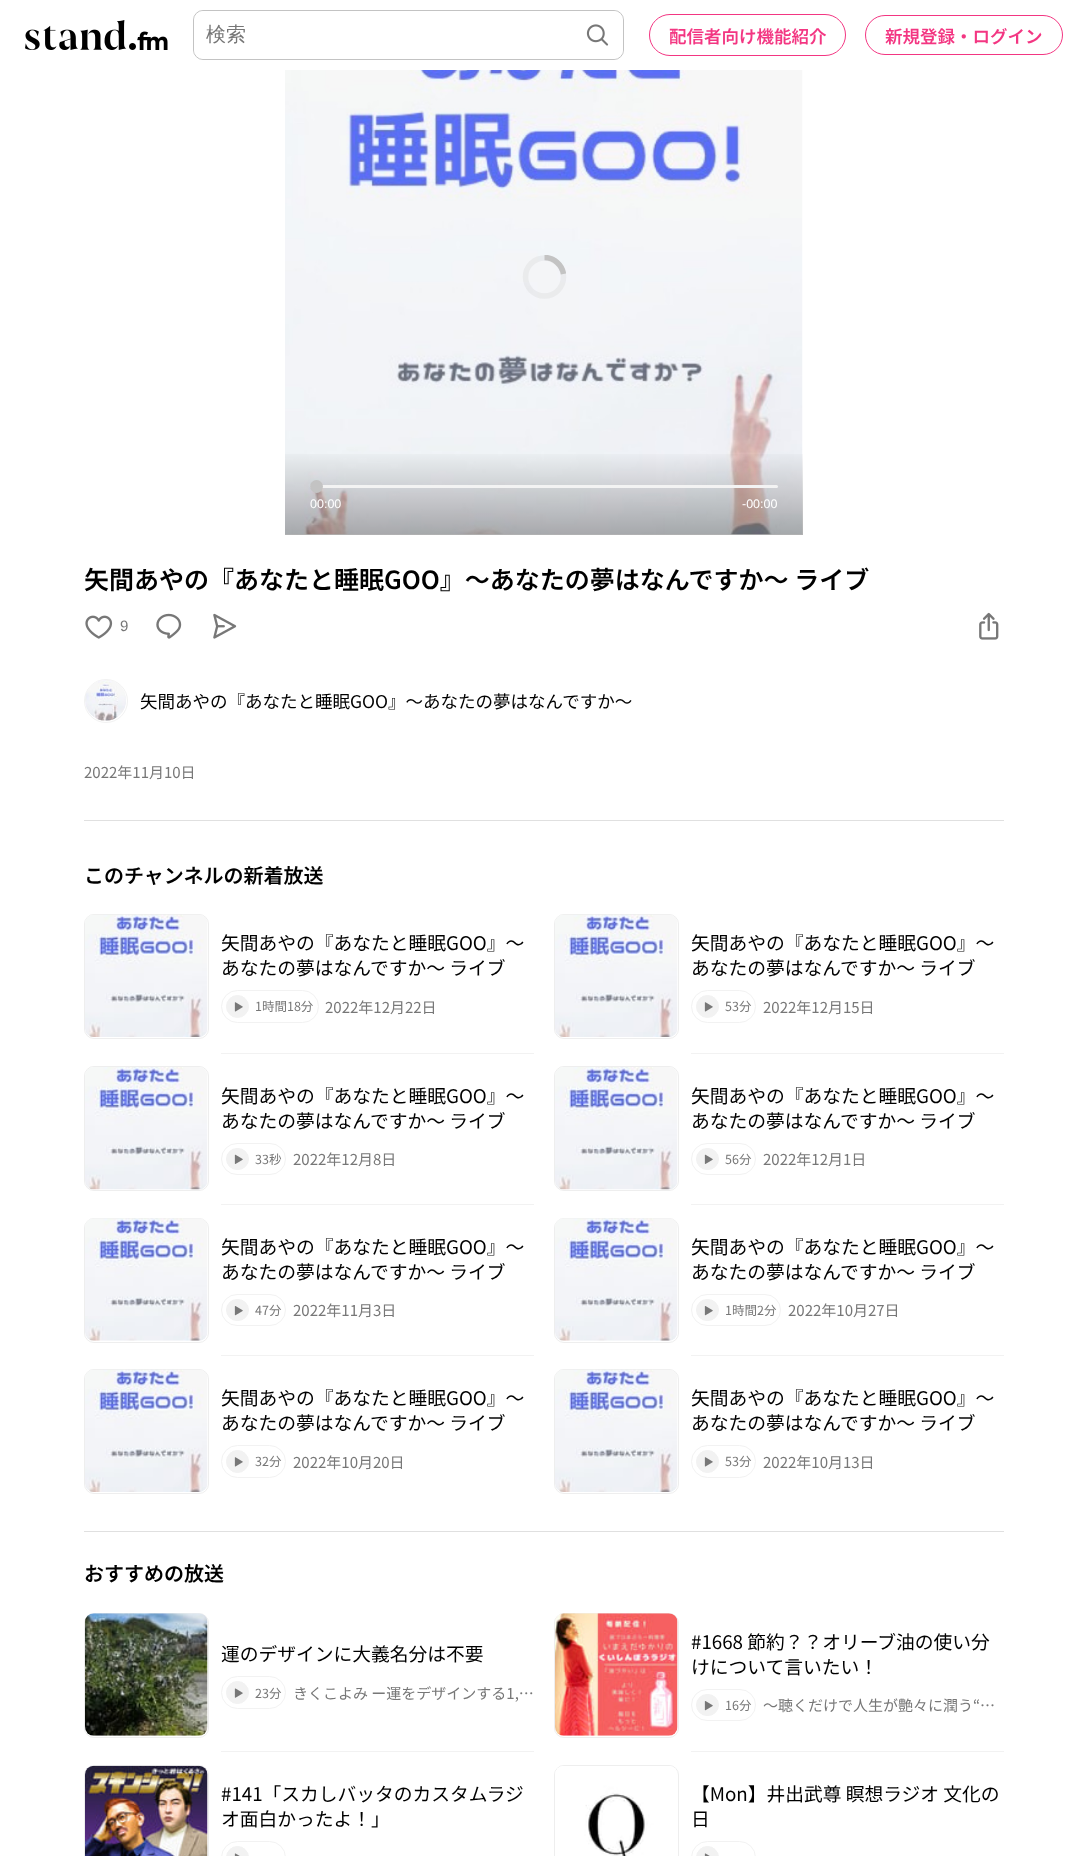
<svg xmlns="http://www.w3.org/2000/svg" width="1087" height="1856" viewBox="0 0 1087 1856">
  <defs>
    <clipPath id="clip1"><path d="M523 255h43v44H523z"/></clipPath>
    <linearGradient id="g1" gradientUnits="userSpaceOnUse" x1="544" y1="535" x2="544" y2="448"><stop offset="0" stop-color="#000" stop-opacity="0.3"/><stop offset="1" stop-color="#000" stop-opacity="0"/></linearGradient>
  </defs>
  <rect width="100%" height="100%" fill="#fff"/>
  <image x="25" y="20" width="143" height="30" href="img/1.png"/>
  <rect x="193.5" y="10.5" width="430" height="49" rx="9.5" fill="none" stroke="#c3c3c3"/>
  <rect x="194" y="11" width="429" height="48" rx="10" fill="#fff"/>
  <image x="586" y="24" width="23" height="22" href="img/2.png"/>
  <rect x="649.5" y="14.5" width="196" height="41" rx="20.5" fill="none" stroke="#f33682"/>
  <rect x="865.5" y="15.5" width="197" height="39" rx="19.5" fill="none" stroke="#f33682"/>
  <image x="285" y="70" width="518" height="465" href="img/3.png"/>
  <circle cx="544.5" cy="277" r="19" fill="none" stroke="#c3c3c333" stroke-width="5.5"/>
  <g clip-path="url(#clip1)">
    <path d="M544.5 257.5C554 257.5 562 265 563.5 274" fill="none" stroke="#c3c3c3" stroke-width="5.5"/>
  </g>
  <path d="M285 454h518v81H285z" fill="url(#g1)"/>
  <rect x="310" y="485" width="468" height="3" rx="1.5" fill="#f3f3f3"/>
  <circle cx="316.5" cy="486.5" r="6.5" fill="#c3c3c3"/>
  <image x="85" y="615" width="28" height="24" href="img/4.png"/>
  <image x="156" y="613" width="26" height="26" href="img/5.png"/>
  <image x="213" y="613" width="24" height="26" href="img/6.png"/>
  <image x="979" y="612" width="20" height="28" href="img/7.png"/>
  <circle cx="106" cy="701" r="21.5" fill="none" stroke="#f2f2f2"/>
  <image x="85" y="680" width="41" height="41" href="img/8.png"/>
  <path d="M84 820h920v1H84z" fill="#e0e0e0"/>
  <rect x="84.5" y="914.5" width="124" height="124" rx="9.5" fill="none" stroke="#eee"/>
  <image x="85" y="914" width="123" height="123" href="img/9.png"/>
  <rect x="221.5" y="990.5" width="97" height="32" rx="16" fill="none" stroke="#f2f2f2"/>
  <circle cx="237.5" cy="1006.5" r="11" fill="#f2f2f2" stroke="#f2f2f2"/>
  <image x="234" y="1002" width="9" height="10" href="img/10.png"/>
  <rect x="554.5" y="914.5" width="124" height="124" rx="9.5" fill="none" stroke="#eee"/>
  <image x="555" y="914" width="123" height="123" href="img/11.png"/>
  <rect x="691.5" y="990.5" width="64" height="32" rx="16" fill="none" stroke="#f2f2f2"/>
  <circle cx="707.5" cy="1006.5" r="11" fill="#f2f2f2" stroke="#f2f2f2"/>
  <image x="704" y="1002" width="9" height="10" href="img/10.png"/>
  <path d="M221 1053h313v1H221z" fill="#f2f2f2"/>
  <rect x="84.5" y="1066.5" width="124" height="124" rx="9.5" fill="none" stroke="#eee"/>
  <image x="85" y="1067" width="123" height="123" href="img/12.png"/>
  <rect x="221.5" y="1143.5" width="64" height="31" rx="15.5" fill="none" stroke="#f2f2f2"/>
  <rect x="226.5" y="1148.5" width="22" height="21" rx="10.5" fill="#f2f2f2" stroke="#f2f2f2"/>
  <image x="234" y="1154" width="9" height="10" href="img/13.png"/>
  <path d="M691 1053h313v1H691z" fill="#f2f2f2"/>
  <rect x="554.5" y="1066.5" width="124" height="124" rx="9.5" fill="none" stroke="#eee"/>
  <image x="555" y="1067" width="123" height="123" href="img/14.png"/>
  <rect x="691.5" y="1143.5" width="64" height="31" rx="15.5" fill="none" stroke="#f2f2f2"/>
  <rect x="696.5" y="1148.5" width="22" height="21" rx="10.5" fill="#f2f2f2" stroke="#f2f2f2"/>
  <image x="704" y="1154" width="9" height="10" href="img/13.png"/>
  <path d="M221 1204h313v1H221z" fill="#f2f2f2"/>
  <rect x="84.5" y="1218.5" width="124" height="124" rx="9.5" fill="none" stroke="#eee"/>
  <image x="85" y="1218" width="123" height="123" href="img/15.png"/>
  <rect x="221.5" y="1294.5" width="64" height="31" rx="15.5" fill="none" stroke="#f2f2f2"/>
  <rect x="226.5" y="1299.5" width="22" height="21" rx="10.5" fill="#f2f2f2" stroke="#f2f2f2"/>
  <image x="234" y="1306" width="9" height="10" href="img/16.png"/>
  <path d="M691 1204h313v1H691z" fill="#f2f2f2"/>
  <rect x="554.5" y="1218.5" width="124" height="124" rx="9.5" fill="none" stroke="#eee"/>
  <image x="555" y="1218" width="123" height="123" href="img/17.png"/>
  <rect x="691.5" y="1294.5" width="89" height="31" rx="15.5" fill="none" stroke="#f2f2f2"/>
  <rect x="696.5" y="1299.5" width="22" height="21" rx="10.5" fill="#f2f2f2" stroke="#f2f2f2"/>
  <image x="704" y="1306" width="9" height="10" href="img/16.png"/>
  <path d="M221 1355h313v1H221z" fill="#f2f2f2"/>
  <rect x="84.5" y="1369.5" width="124" height="124" rx="9.5" fill="none" stroke="#eee"/>
  <image x="85" y="1369" width="123" height="123" href="img/18.png"/>
  <rect x="221.5" y="1445.5" width="64" height="32" rx="16" fill="none" stroke="#f2f2f2"/>
  <circle cx="237.5" cy="1461.5" r="11" fill="#f2f2f2" stroke="#f2f2f2"/>
  <image x="234" y="1457" width="9" height="10" href="img/10.png"/>
  <path d="M691 1355h313v1H691z" fill="#f2f2f2"/>
  <rect x="554.5" y="1369.5" width="124" height="124" rx="9.5" fill="none" stroke="#eee"/>
  <image x="555" y="1369" width="123" height="123" href="img/19.png"/>
  <rect x="691.5" y="1445.5" width="64" height="32" rx="16" fill="none" stroke="#f2f2f2"/>
  <circle cx="707.5" cy="1461.5" r="11" fill="#f2f2f2" stroke="#f2f2f2"/>
  <image x="704" y="1457" width="9" height="10" href="img/10.png"/>
  <path d="M84 1531h920v1H84z" fill="#e0e0e0"/>
  <rect x="84.5" y="1613.5" width="124" height="124" rx="9.5" fill="none" stroke="#eee"/>
  <image x="85" y="1613" width="123" height="123" href="img/20.png"/>
  <rect x="221.5" y="1676.5" width="64" height="32" rx="16" fill="none" stroke="#f2f2f2"/>
  <circle cx="237.5" cy="1692.5" r="11" fill="#f2f2f2" stroke="#f2f2f2"/>
  <image x="234" y="1688" width="9" height="10" href="img/21.png"/>
  <rect x="554.5" y="1613.5" width="124" height="124" rx="9.5" fill="none" stroke="#eee"/>
  <image x="555" y="1613" width="123" height="123" href="img/22.png"/>
  <rect x="691.5" y="1689.5" width="64" height="31" rx="15.5" fill="none" stroke="#f2f2f2"/>
  <rect x="696.5" y="1694.5" width="22" height="21" rx="10.5" fill="#f2f2f2" stroke="#f2f2f2"/>
  <image x="704" y="1701" width="9" height="10" href="img/16.png"/>
  <path d="M221 1751h313v1H221z" fill="#f2f2f2"/>
  <rect x="84.5" y="1765.5" width="124" height="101" rx="9.5" fill="none" stroke="#eee"/>
  <image x="85" y="1765" width="123" height="91" href="img/23.png"/>
  <rect x="221.5" y="1841.5" width="64" height="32" rx="16" fill="none" stroke="#f2f2f2"/>
  <circle cx="237.5" cy="1857.5" r="11" fill="#f2f2f2" stroke="#f2f2f2"/>
  <image x="234" y="1853" width="6" height="3" href="img/24.png"/>
  <path d="M691 1751h313v1H691z" fill="#f2f2f2"/>
  <rect x="554.5" y="1765.5" width="124" height="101" rx="9.5" fill="none" stroke="#eee"/>
  <image x="555" y="1766" width="121" height="90" href="img/25.png"/>
  <rect x="691.5" y="1841.5" width="64" height="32" rx="16" fill="none" stroke="#f2f2f2"/>
  <circle cx="707.5" cy="1857.5" r="11" fill="#f2f2f2" stroke="#f2f2f2"/>
  <image x="704" y="1853" width="6" height="3" href="img/24.png"/>
  <text x="206" y="41" font-family="WenQuanYi Zen Hei" font-size="20" font-weight="500" fill="#777">検索</text>
  <g font-family="Noto Sans JP" font-size="17.5" font-weight="600" fill="#f33682">
    <text x="669" y="43">配信者向け機能紹介</text>
    <text x="885" y="43">新規登録・ログイン</text>
  </g>
  <g font-family="Liberation Sans" font-size="12.5" fill="#fff">
    <text x="310" y="508">00:00</text>
    <text x="742" y="508">-00:00</text>
  </g>
  <text x="84" y="589" font-family="Noto Sans JP" font-size="25" font-weight="600" fill="#000">矢間あやの『あなたと睡眠GOO』〜あなたの夢はなんですか〜 ライブ</text>
  <text x="120" y="631" font-family="Liberation Sans" font-size="15" fill="#777">9</text>
  <text x="140" y="708" font-family="Noto Sans JP" font-size="17.5" fill="#000">矢間あやの『あなたと睡眠GOO』〜あなたの夢はなんですか〜</text>
  <text x="84" y="778" font-family="Noto Sans JP" font-size="15" fill="#777">2022年11月10日</text>
  <text x="84" y="883" font-family="Noto Sans JP" font-size="20" font-weight="600" fill="#000">このチャンネルの新着放送</text>
  <g font-family="Noto Sans JP" font-size="18.75" fill="#000">
    <text x="221" y="950">矢間あやの『あなたと睡眠GOO』〜</text>
    <text x="221" y="975">あなたの夢はなんですか〜 ライブ</text>
  </g>
  <text x="255" y="1011" font-family="Noto Sans JP" font-size="12.5" fill="#777">1時間18分</text>
  <text x="325" y="1013" font-family="Noto Sans JP" font-size="15" fill="#777">2022年12月22日</text>
  <g font-family="Noto Sans JP" font-size="18.75" fill="#000">
    <text x="691" y="950">矢間あやの『あなたと睡眠GOO』〜</text>
    <text x="691" y="975">あなたの夢はなんですか〜 ライブ</text>
  </g>
  <text x="725" y="1011" font-family="Noto Sans JP" font-size="12.5" fill="#777">53分</text>
  <text x="763" y="1013" font-family="Noto Sans JP" font-size="15" fill="#777">2022年12月15日</text>
  <g font-family="Noto Sans JP" font-size="18.75" fill="#000">
    <text x="221" y="1103">矢間あやの『あなたと睡眠GOO』〜</text>
    <text x="221" y="1128">あなたの夢はなんですか〜 ライブ</text>
  </g>
  <text x="255" y="1164" font-family="Noto Sans JP" font-size="12.5" fill="#777">33秒</text>
  <text x="293" y="1165" font-family="Noto Sans JP" font-size="15" fill="#777">2022年12月8日</text>
  <g font-family="Noto Sans JP" font-size="18.75" fill="#000">
    <text x="691" y="1103">矢間あやの『あなたと睡眠GOO』〜</text>
    <text x="691" y="1128">あなたの夢はなんですか〜 ライブ</text>
  </g>
  <text x="725" y="1164" font-family="Noto Sans JP" font-size="12.5" fill="#777">56分</text>
  <text x="763" y="1165" font-family="Noto Sans JP" font-size="15" fill="#777">2022年12月1日</text>
  <g font-family="Noto Sans JP" font-size="18.75" fill="#000">
    <text x="221" y="1254">矢間あやの『あなたと睡眠GOO』〜</text>
    <text x="221" y="1279">あなたの夢はなんですか〜 ライブ</text>
  </g>
  <text x="255" y="1315" font-family="Noto Sans JP" font-size="12.5" fill="#777">47分</text>
  <text x="293" y="1316" font-family="Noto Sans JP" font-size="15" fill="#777">2022年11月3日</text>
  <g font-family="Noto Sans JP" font-size="18.75" fill="#000">
    <text x="691" y="1254">矢間あやの『あなたと睡眠GOO』〜</text>
    <text x="691" y="1279">あなたの夢はなんですか〜 ライブ</text>
  </g>
  <text x="725" y="1315" font-family="Noto Sans JP" font-size="12.5" fill="#777">1時間2分</text>
  <text x="788" y="1316" font-family="Noto Sans JP" font-size="15" fill="#777">2022年10月27日</text>
  <g font-family="Noto Sans JP" font-size="18.75" fill="#000">
    <text x="221" y="1405">矢間あやの『あなたと睡眠GOO』〜</text>
    <text x="221" y="1430">あなたの夢はなんですか〜 ライブ</text>
  </g>
  <text x="255" y="1466" font-family="Noto Sans JP" font-size="12.5" fill="#777">32分</text>
  <text x="293" y="1468" font-family="Noto Sans JP" font-size="15" fill="#777">2022年10月20日</text>
  <g font-family="Noto Sans JP" font-size="18.75" fill="#000">
    <text x="691" y="1405">矢間あやの『あなたと睡眠GOO』〜</text>
    <text x="691" y="1430">あなたの夢はなんですか〜 ライブ</text>
  </g>
  <text x="725" y="1466" font-family="Noto Sans JP" font-size="12.5" fill="#777">53分</text>
  <text x="763" y="1468" font-family="Noto Sans JP" font-size="15" fill="#777">2022年10月13日</text>
  <text x="84" y="1581" font-family="Noto Sans JP" font-size="20" font-weight="600" fill="#000">おすすめの放送</text>
  <text x="221" y="1661" font-family="Noto Sans JP" font-size="18.75" fill="#000">運のデザインに大義名分は不要</text>
  <text x="255" y="1698" font-family="Noto Sans JP" font-size="12.5" fill="#777">23分</text>
  <text x="293" y="1699" font-family="Noto Sans JP" font-size="15" fill="#777">きくこよみ ー運をデザインする1,…</text>
  <g font-family="Noto Sans JP" font-size="18.75" fill="#000">
    <text x="691" y="1649">#1668 節約？？オリーブ油の使い分</text>
    <text x="691" y="1674">けについて言いたい！</text>
  </g>
  <text x="725" y="1710" font-family="Noto Sans JP" font-size="12.5" fill="#777">16分</text>
  <text x="763" y="1711" font-family="Noto Sans JP" font-size="15" fill="#777">〜聴くだけで人生が艶々に潤う“…</text>
  <g font-family="Noto Sans JP" font-size="18.75" fill="#000">
    <text x="221" y="1801">#141「スカしバッタのカスタムラジ</text>
    <text x="221" y="1826">オ面白かったよ！」</text>
    <text x="691" y="1801">【Mon】井出武尊 瞑想ラジオ 文化の</text>
    <text x="691" y="1826">日</text>
  </g>
</svg>
